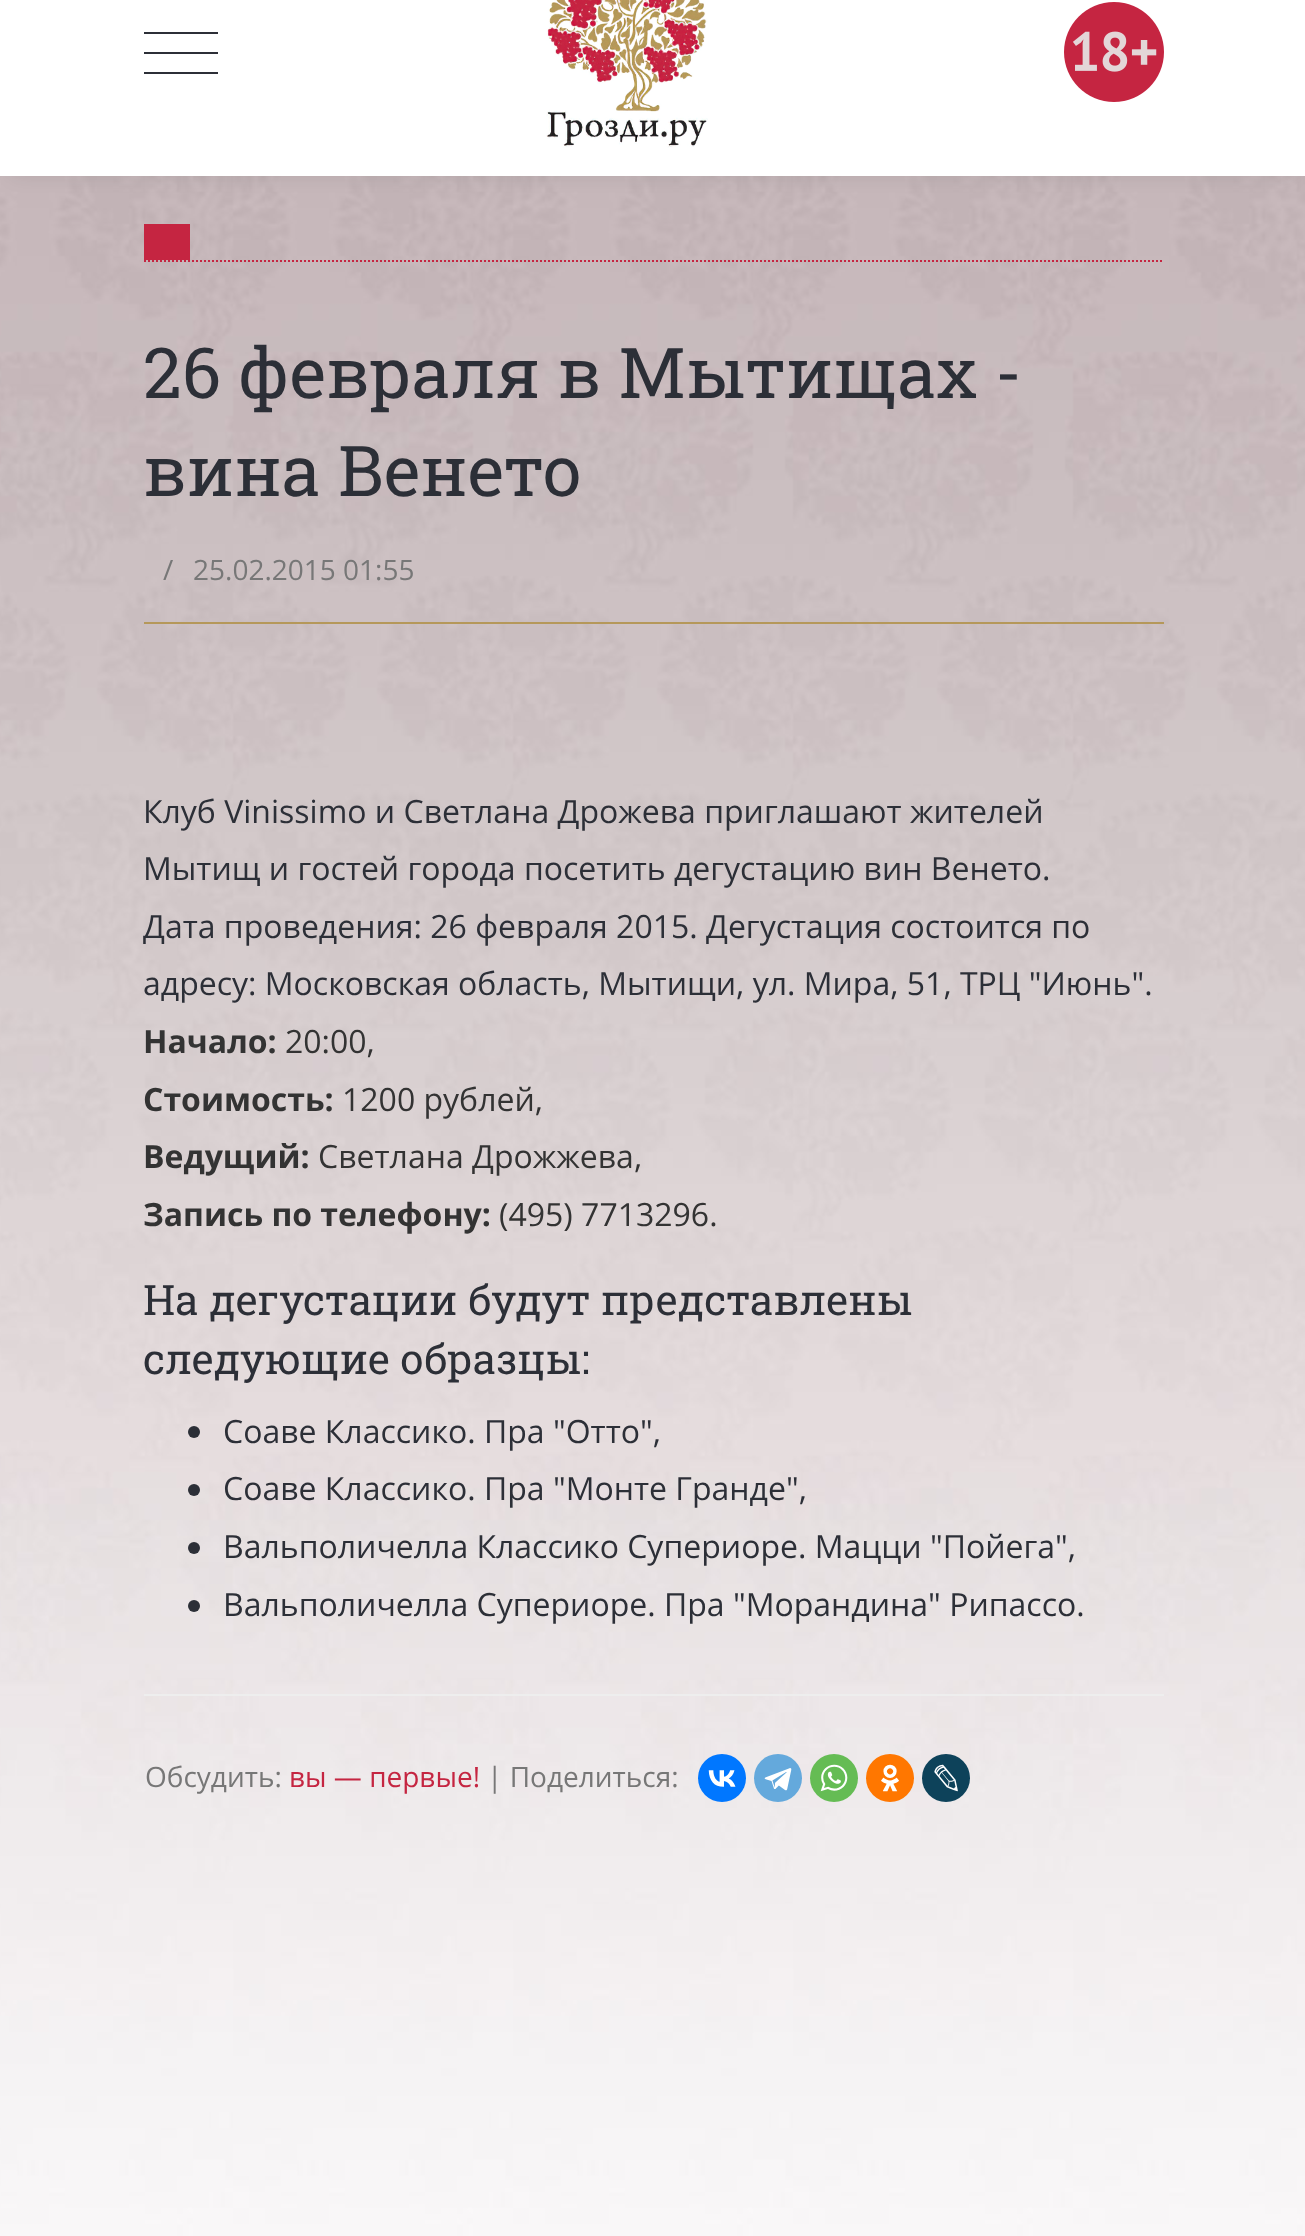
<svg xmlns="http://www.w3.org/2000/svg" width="1305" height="2236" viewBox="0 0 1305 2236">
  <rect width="100%" height="100%" fill="#fff"/>
  <image x="0" y="176" width="1305" height="2060" href="img/3.png"/>
  <path d="M12 -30h1282v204H12z" fill="#0000001a" filter="blur(10px)"/>
  <path d="M0 0h1305v176H0z" fill="#fff"/>
  <path d="M144 32h74v2H144z" fill="#2c2f37"/>
  <path d="M144 52h74v2H144z" fill="#2c2f37"/>
  <path d="M144 72h74v2H144z" fill="#2c2f37"/>
  <image x="546" y="0" width="162" height="148" href="img/1.png"/>
  <image x="1064" y="2" width="100" height="100" href="img/2.png"/>
  <path d="M144 261H1164" fill="none" stroke="#c52541" stroke-width="2" stroke-dasharray="2 2"/>
  <path d="M144 224h46v36H144z" fill="#c52541"/>
  <path d="M144 622h1020v2H144z" fill="#b5985a"/>
  <circle cx="194" cy="1432" r="6" fill="#2c2f37"/>
  <circle cx="194" cy="1490" r="6" fill="#2c2f37"/>
  <circle cx="194" cy="1548" r="6" fill="#2c2f37"/>
  <circle cx="194" cy="1606" r="6" fill="#2c2f37"/>
  <path d="M144 1694h1020v2H144z" fill="#eee"/>
  <circle cx="722" cy="1778" r="24" fill="#07f"/>
  <image x="708" y="1770" width="28" height="17" href="img/4.png"/>
  <circle cx="778" cy="1778" r="24" fill="#64a9dc"/>
  <image x="764" y="1768" width="28" height="23" href="img/5.png"/>
  <circle cx="834" cy="1778" r="24" fill="#65bc54"/>
  <image x="820" y="1764" width="28" height="28" href="img/6.png"/>
  <circle cx="890" cy="1778" r="24" fill="#f70"/>
  <image x="881" y="1764" width="18" height="28" href="img/7.png"/>
  <circle cx="946" cy="1778" r="24" fill="#0d425a"/>
  <image x="934" y="1764" width="24" height="28" href="img/8.png"/>
  <g font-family="Roboto Slab" font-size="70" fill="#2c2f37">
    <text x="143" y="398">26 февраля в Мытищах -</text>
    <text x="143" y="496">вина Венето</text>
  </g>
  <g font-family="Open Sans" font-size="28" fill="#777">
    <text x="163" y="580">/</text>
    <text x="193" y="580">25.02.2015 01:55</text>
  </g>
  <g font-family="Open Sans" font-size="32" fill="#2c2f37">
    <text x="143" y="823">Клуб Vinissimo и Светлана Дрожева приглашают жителей</text>
    <text x="143" y="880">Мытищ и гостей города посетить дегустацию вин Венето.</text>
    <text x="143" y="938">Дата проведения: 26 февраля 2015. Дегустация состоится по</text>
    <text x="143" y="995">адресу: Московская область, Мытищи, ул. Мира, 51, ТРЦ "Июнь".</text>
  </g>
  <text x="143" y="1053" font-family="Open Sans" font-size="32" font-weight="bold" fill="#333">Начало:</text>
  <text x="285" y="1053" font-family="Open Sans" font-size="32" fill="#333">20:00,</text>
  <text x="143" y="1111" font-family="Open Sans" font-size="32" font-weight="bold" fill="#333">Стоимость:</text>
  <text x="342" y="1111" font-family="Open Sans" font-size="32" fill="#333">1200 рублей,</text>
  <text x="143" y="1168" font-family="Open Sans" font-size="32" font-weight="bold" fill="#333">Ведущий:</text>
  <text x="318" y="1168" font-family="Open Sans" font-size="32" fill="#333">Светлана Дрожжева,</text>
  <text x="143" y="1226" font-family="Open Sans" font-size="32" font-weight="bold" fill="#333">Запись по телефону:</text>
  <text x="499" y="1226" font-family="Open Sans" font-size="32" fill="#333">(495) 7713296.</text>
  <g font-family="Roboto Slab" font-size="42" fill="#2c2f37">
    <text x="143" y="1315">На дегустации будут представлены</text>
    <text x="143" y="1374">следующие образцы:</text>
  </g>
  <g font-family="Open Sans" font-size="32" fill="#2c2f37">
    <text x="223" y="1443">Соаве Классико. Пра "Отто",</text>
    <text x="223" y="1500">Соаве Классико. Пра "Монте Гранде",</text>
    <text x="223" y="1558">Вальполичелла Классико Супериоре. Мацци "Пойега",</text>
    <text x="223" y="1616">Вальполичелла Супериоре. Пра "Морандина" Рипассо.</text>
  </g>
  <text x="145" y="1787" font-family="Open Sans" font-size="28" fill="#777">Обсудить:</text>
  <text x="289" y="1787" font-family="Open Sans" font-size="28" fill="#c52541">вы — первые!</text>
  <text x="487" y="1787" font-family="Open Sans" font-size="28" fill="#777">| Поделиться:</text>
</svg>
